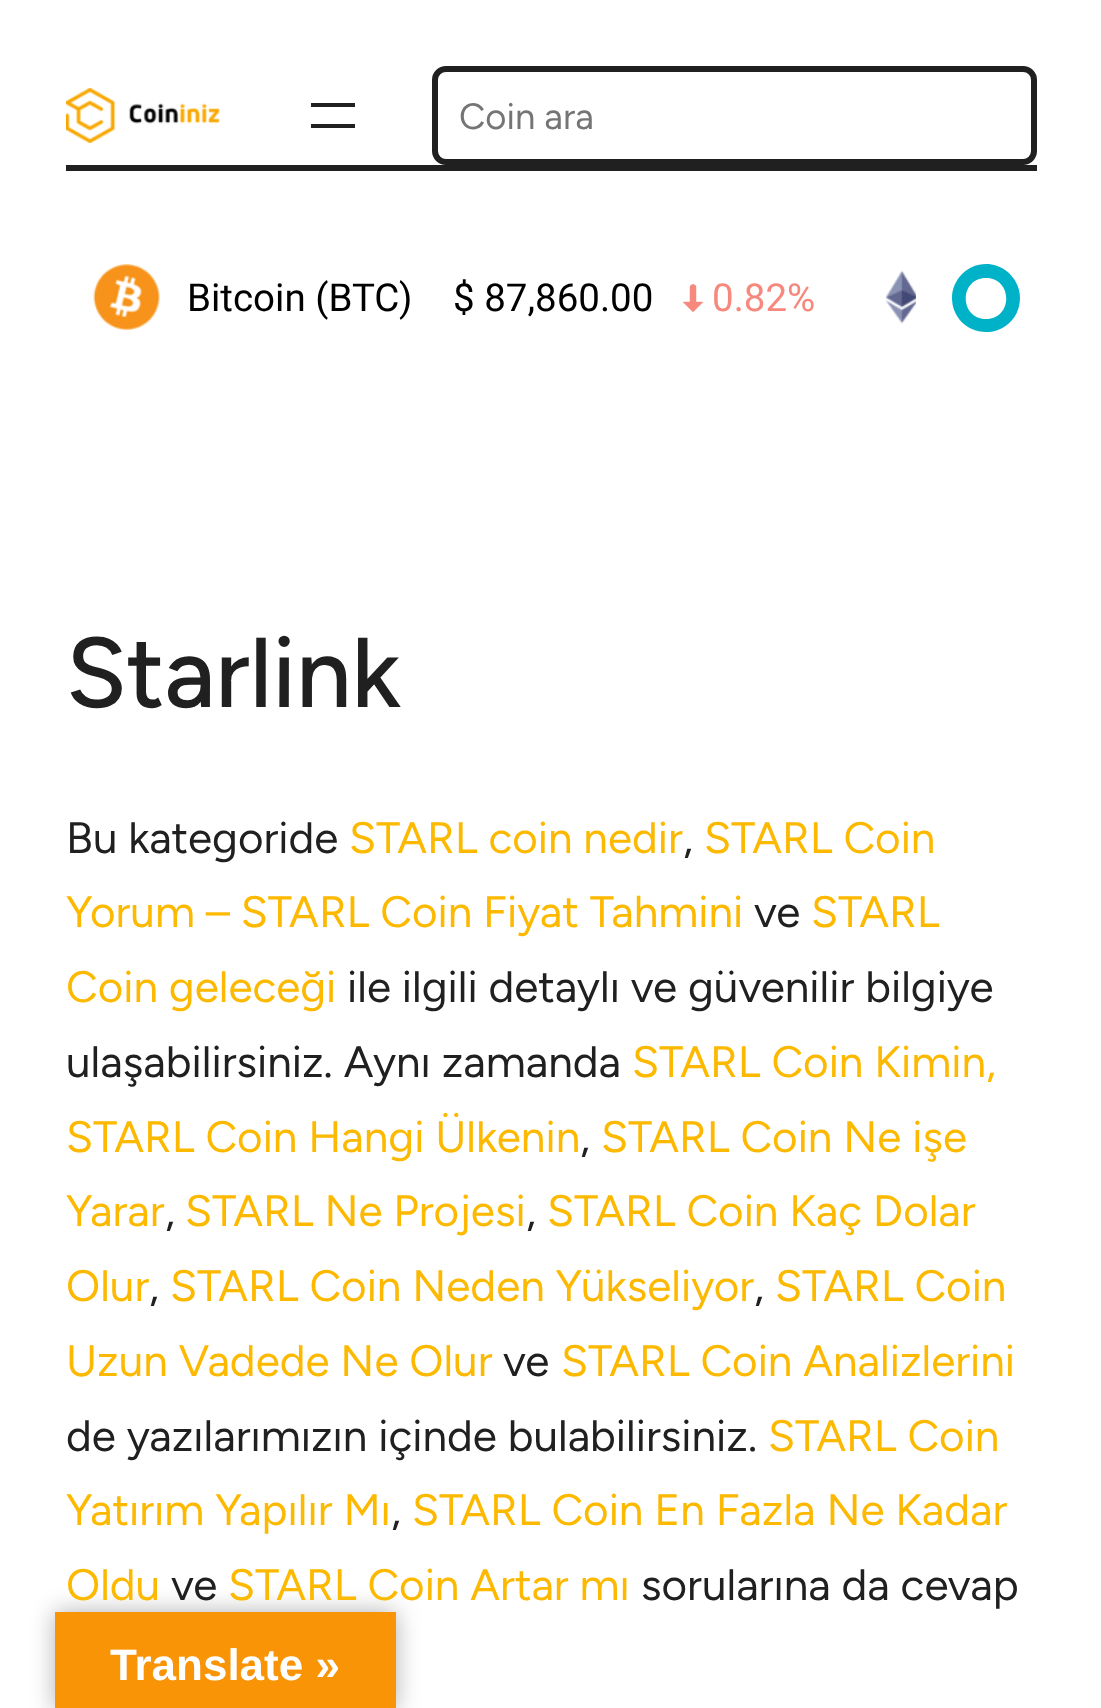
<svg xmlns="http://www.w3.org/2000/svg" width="1101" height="1708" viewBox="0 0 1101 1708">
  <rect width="100%" height="100%" fill="#fff"/>
  <path d="M66 165h971v6H66z" fill="#202020"/>
  <image x="66" y="88" width="154" height="55" href="img/1.png"/>
  <path d="M311 103h44v4H311z" fill="#202020"/>
  <path d="M311 124h44v4H311z" fill="#202020"/>
  <rect x="435" y="69" width="599" height="93" rx="11" fill="none" stroke="#202020" stroke-width="6"/>
  <image x="93" y="264" width="67" height="66" href="img/2.png"/>
  <image x="682" y="284" width="22" height="29" href="img/3.png"/>
  <image x="885" y="270" width="31" height="54" href="img/4.png"/>
  <path d="M986 319C959 319 959 278 986 278C1013 278 1013 319 986 319M986 264C967 264 952 280 952 298C952 317 967 332 986 332C1005 332 1020 317 1020 298C1020 280 1005 264 986 264" fill="#00b2c8" fill-rule="evenodd"/>
  <path d="M55 1612h341v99H55z" fill="#0000004d" filter="blur(12.5px)"/>
  <path d="M55 1612h341v96H55z" fill="#f89406"/>
  <text x="459" y="129" font-family="Figtree" font-size="36.5" fill="#757575">Coin ara</text>
  <g font-family="Roboto" font-size="38.5" fill="#000">
    <text x="187" y="311">Bitcoin (BTC)</text>
    <text x="453" y="311">$ 87,860.00</text>
  </g>
  <text x="712" y="311" font-family="Roboto" font-size="38.5" fill="#f6887d">0.82%</text>
  <text x="66" y="707" font-family="Figtree" font-size="99" font-weight="500" fill="#202020">Starlink</text>
  <text x="66" y="853" font-family="Figtree" font-size="44" fill="#202020">Bu kategoride</text>
  <text x="349" y="853" font-family="Figtree" font-size="44" fill="#fcb900">STARL coin nedir</text>
  <text x="683" y="853" font-family="Figtree" font-size="44" fill="#202020">,</text>
  <g font-family="Figtree" font-size="44" fill="#fcb900">
    <text x="704" y="853">STARL Coin</text>
    <text x="66" y="927">Yorum – STARL Coin Fiyat Tahmini</text>
  </g>
  <text x="754" y="927" font-family="Figtree" font-size="44" fill="#202020">ve</text>
  <g font-family="Figtree" font-size="44" fill="#fcb900">
    <text x="811" y="927">STARL</text>
    <text x="66" y="1002">Coin geleceği</text>
  </g>
  <g font-family="Figtree" font-size="44" fill="#202020">
    <text x="347" y="1002">ile ilgili detaylı ve güvenilir bilgiye</text>
    <text x="66" y="1077">ulaşabilirsiniz. Aynı zamanda</text>
  </g>
  <g font-family="Figtree" font-size="44" fill="#fcb900">
    <text x="632" y="1077">STARL Coin Kimin,</text>
    <text x="66" y="1152">STARL Coin Hangi Ülkenin</text>
  </g>
  <text x="580" y="1152" font-family="Figtree" font-size="44" fill="#202020">,</text>
  <g font-family="Figtree" font-size="44" fill="#fcb900">
    <text x="601" y="1152">STARL Coin Ne işe</text>
    <text x="66" y="1226">Yarar</text>
  </g>
  <text x="165" y="1226" font-family="Figtree" font-size="44" fill="#202020">,</text>
  <text x="185" y="1226" font-family="Figtree" font-size="44" fill="#fcb900">STARL Ne Projesi</text>
  <text x="526" y="1226" font-family="Figtree" font-size="44" fill="#202020">,</text>
  <g font-family="Figtree" font-size="44" fill="#fcb900">
    <text x="547" y="1226">STARL Coin Kaç Dolar</text>
    <text x="66" y="1301">Olur</text>
  </g>
  <text x="149" y="1301" font-family="Figtree" font-size="44" fill="#202020">,</text>
  <text x="170" y="1301" font-family="Figtree" font-size="44" fill="#fcb900">STARL Coin Neden Yükseliyor</text>
  <text x="754" y="1301" font-family="Figtree" font-size="44" fill="#202020">,</text>
  <g font-family="Figtree" font-size="44" fill="#fcb900">
    <text x="775" y="1301">STARL Coin</text>
    <text x="66" y="1376">Uzun Vadede Ne Olur</text>
  </g>
  <text x="503" y="1376" font-family="Figtree" font-size="44" fill="#202020">ve</text>
  <text x="561" y="1376" font-family="Figtree" font-size="44" fill="#fcb900">STARL Coin Analizlerini</text>
  <text x="66" y="1451" font-family="Figtree" font-size="44" fill="#202020">de yazılarımızın içinde bulabilirsiniz.</text>
  <g font-family="Figtree" font-size="44" fill="#fcb900">
    <text x="768" y="1451">STARL Coin</text>
    <text x="66" y="1525">Yatırım Yapılır Mı</text>
  </g>
  <text x="391" y="1525" font-family="Figtree" font-size="44" fill="#202020">,</text>
  <g font-family="Figtree" font-size="44" fill="#fcb900">
    <text x="412" y="1525">STARL Coin En Fazla Ne Kadar</text>
    <text x="66" y="1600">Oldu</text>
  </g>
  <text x="171" y="1600" font-family="Figtree" font-size="44" fill="#202020">ve</text>
  <text x="228" y="1600" font-family="Figtree" font-size="44" fill="#fcb900">STARL Coin Artar mı</text>
  <text x="641" y="1600" font-family="Figtree" font-size="44" fill="#202020">sorularına da cevap</text>
  <text x="110" y="1680" font-family="Liberation Sans" font-size="44" font-weight="bold" fill="#fff">Translate »</text>
</svg>
